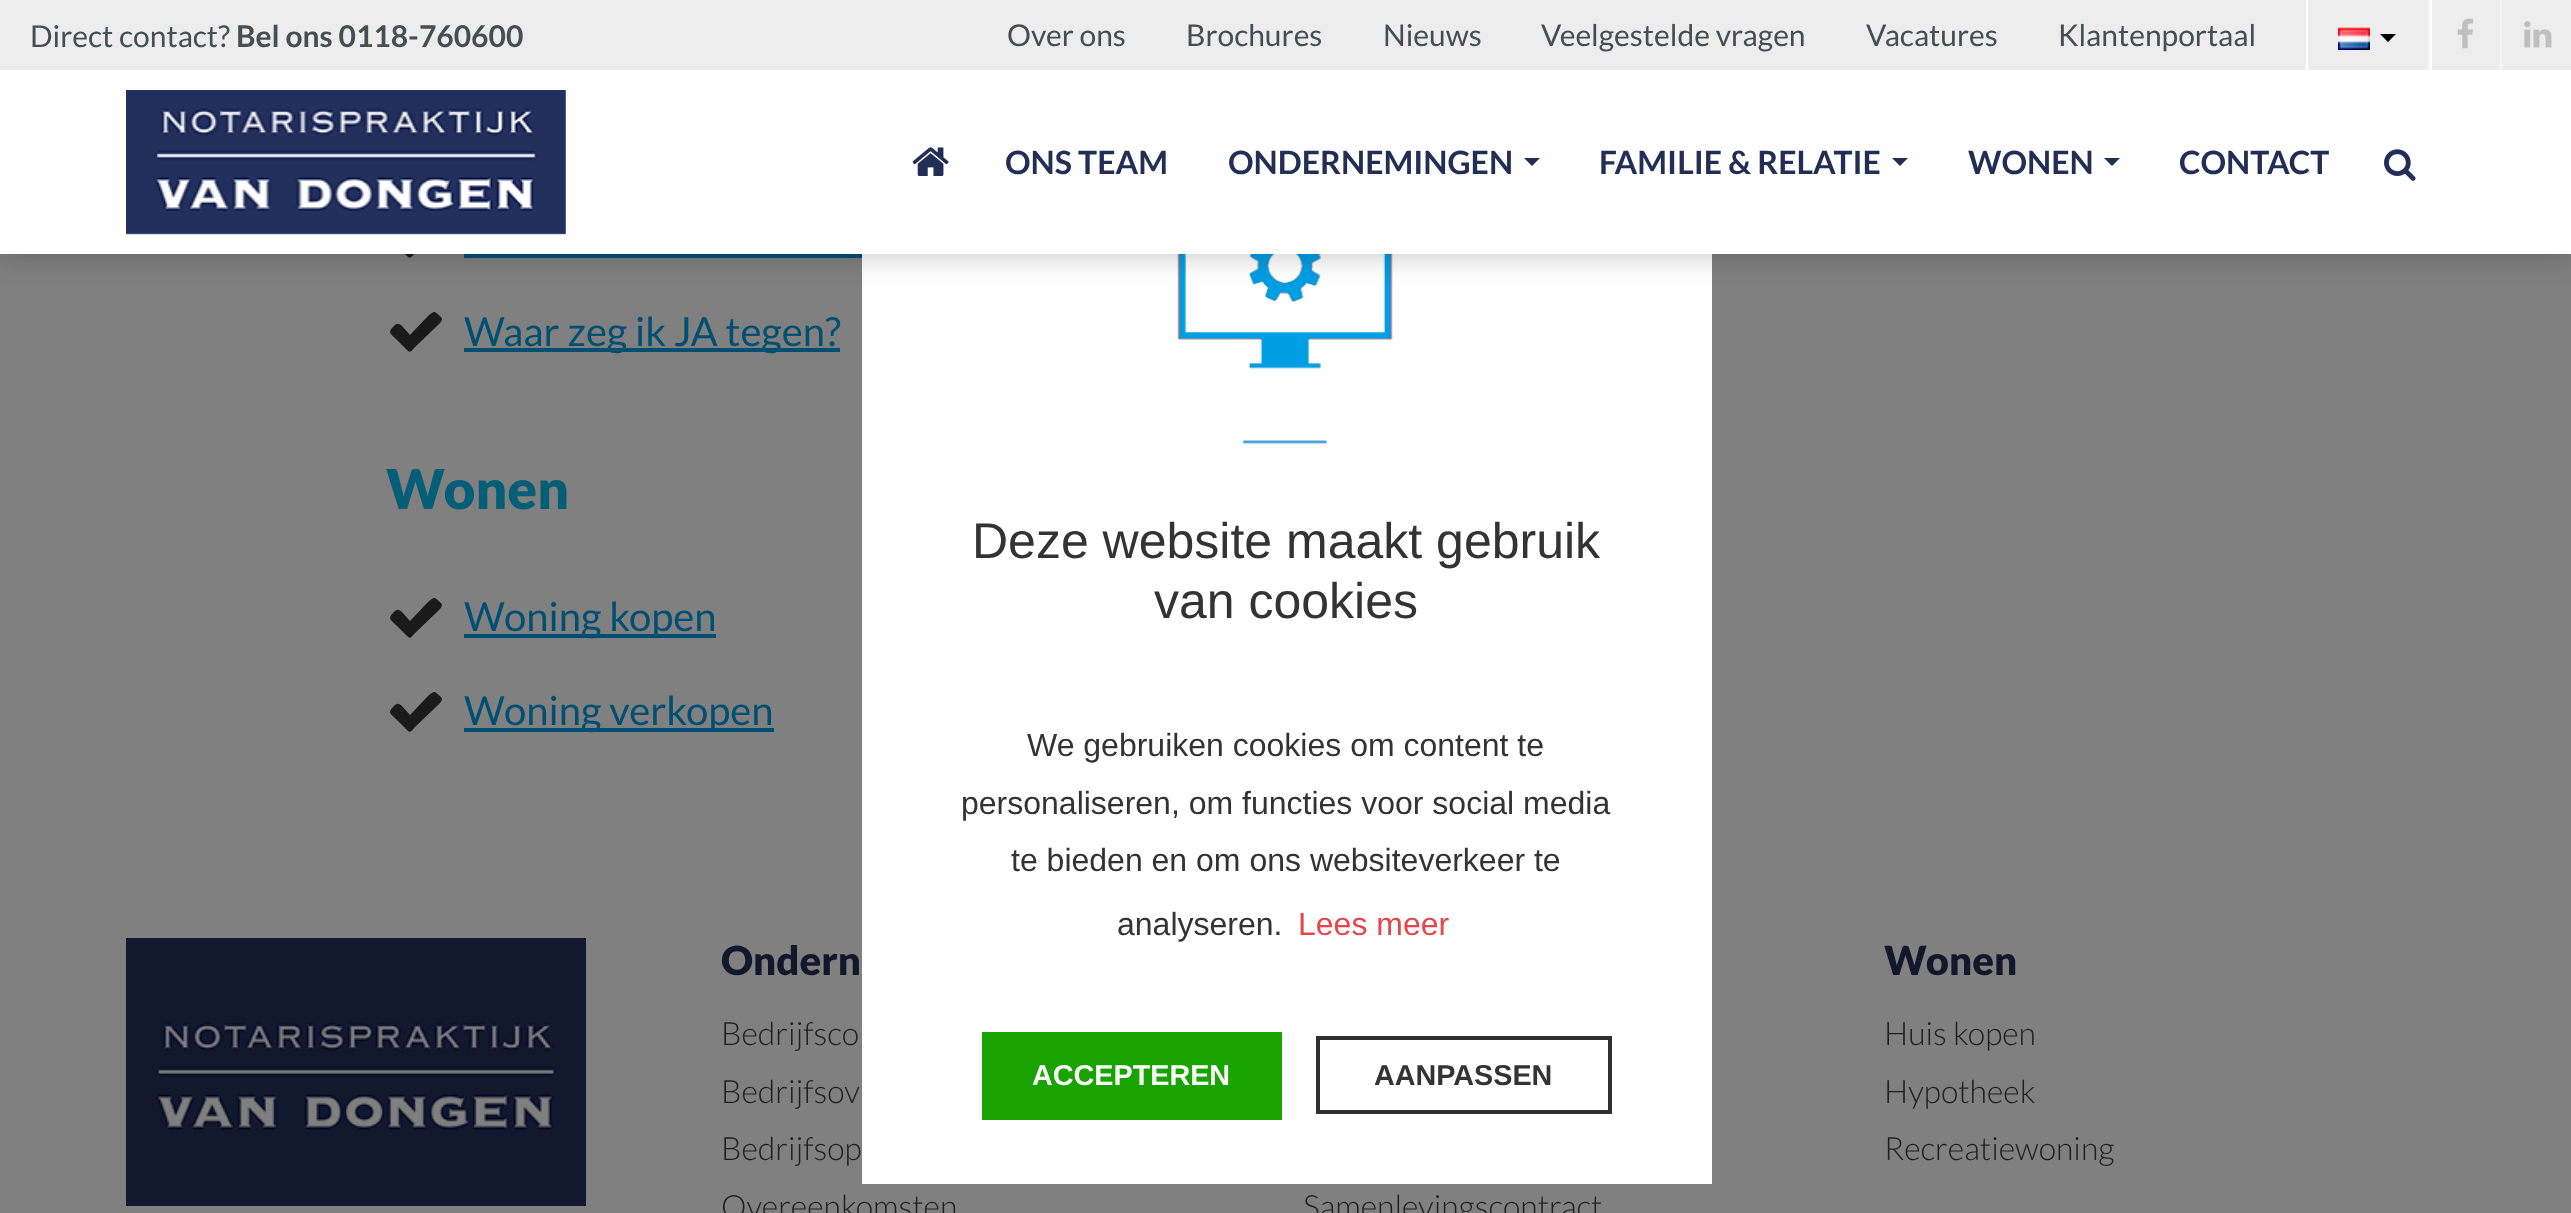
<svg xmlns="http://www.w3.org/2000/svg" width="2571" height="1213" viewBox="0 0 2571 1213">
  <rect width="100%" height="100%" fill="#808080"/>
  <path d="M441 223C444 226 439 230 437 232L414 254C410 259 410 259 405 254L397 246C391 240 387 239 393 233C397 229 398 229 402 232L410 241L428 222C435 216 434 217 441 223Z" fill="#1a1a1a"/>
  <path d="M464 254h398v4H464z" fill="#004f72"/>
  <path d="M862 254h850v930H862z" fill="#fff"/>
  <image x="1177" y="254" width="216" height="191" href="img/8.png"/>
  <path d="M0 0h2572v254H0z" fill="#00000040" filter="blur(15px)"/>
  <path d="M0 70h2571v184H0z" fill="#fff"/>
  <path d="M0 0h2571v70H0z" fill="#ededed"/>
  <path d="M2430 0h2v70H2430z" fill="#fff"/>
  <path d="M2306 0h2v70H2306z" fill="#fff"/>
  <image x="2338" y="27" width="32" height="23" href="img/1.png"/>
  <path d="M2380 34H2396L2388 42Z" fill="#000"/>
  <path d="M2428 0h2v70H2428z" fill="#f6f6f6"/>
  <image x="2457" y="18" width="17" height="31" href="img/2.png"/>
  <path d="M2500 0h2v70H2500z" fill="#f6f6f6"/>
  <image x="2524" y="21" width="28" height="27" href="img/3.png"/>
  <image x="126" y="90" width="440" height="145" href="img/4.png"/>
  <image x="912" y="147" width="37" height="29" href="img/5.png"/>
  <path d="M1524 158H1540L1532 166Z" fill="#232e56"/>
  <path d="M1892 158H1908L1900 166Z" fill="#232e56"/>
  <path d="M2104 158H2120L2112 166Z" fill="#232e56"/>
  <image x="2384" y="149" width="32" height="32" href="img/6.png"/>
  <path d="M441 317C444 320 439 324 437 326L414 348C410 353 410 353 405 348L397 340C391 334 387 333 393 327C397 323 398 323 402 326L410 335L428 316C435 310 434 311 441 317Z" fill="#1a1a1a"/>
  <path d="M464 348h376v4H464z" fill="#004f72"/>
  <path d="M441 603C444 606 439 610 437 612L414 634C410 639 410 639 405 634L397 626C391 620 387 619 393 613C397 609 398 609 402 612L410 621L428 602C435 596 434 597 441 603Z" fill="#1a1a1a"/>
  <path d="M464 634h252v4H464z" fill="#004f72"/>
  <path d="M441 697C444 700 439 704 437 706L414 728C410 733 410 733 405 728L397 720C391 714 387 713 393 707C397 703 398 703 402 706L410 715L428 696C435 690 434 691 441 697Z" fill="#1a1a1a"/>
  <path d="M464 728h310v4H464z" fill="#004f72"/>
  <image x="126" y="938" width="460" height="268" href="img/7.png"/>
  <path d="M982 1032h300v88H982z" fill="#18a300"/>
  <path d="M1318 1038h292v74H1318z" fill="none" stroke="#303030" stroke-width="4"/>
  <text x="30" y="47" font-family="Lato" font-size="30" fill="#454e52">Direct contact?</text>
  <text x="236" y="47" font-family="Lato" font-size="30" font-weight="bold" fill="#454e52">Bel ons 0118-760600</text>
  <g font-family="Lato" font-size="30" fill="#454e52">
    <text x="1007" y="46">Over ons</text>
    <text x="1186" y="46">Brochures</text>
    <text x="1383" y="46">Nieuws</text>
    <text x="1541" y="46">Veelgestelde vragen</text>
    <text x="1866" y="46">Vacatures</text>
    <text x="2058" y="46">Klantenportaal</text>
  </g>
  <g font-family="Lato" font-size="32" font-weight="bold" fill="#232e56">
    <text x="1005" y="174">ONS TEAM</text>
    <text x="1228" y="174">ONDERNEMINGEN</text>
    <text x="1599" y="174">FAMILIE &amp; RELATIE</text>
    <text x="1968" y="174">WONEN</text>
    <text x="2179" y="174">CONTACT</text>
  </g>
  <text x="464" y="346" font-family="Lato" font-size="40" fill="#004f72">Waar zeg ik JA tegen?</text>
  <text x="386" y="509" font-family="Lato" font-size="55" font-weight="900" fill="#055d77">Wonen</text>
  <g font-family="Lato" font-size="40" fill="#004f72">
    <text x="464" y="631">Woning kopen</text>
    <text x="464" y="725">Woning verkopen</text>
  </g>
  <text x="721" y="975" font-family="Lato" font-size="40" font-weight="900" fill="#12172b">Ondern</text>
  <g font-family="Lato" font-size="32" font-weight="300" fill="#202020">
    <text x="721" y="1045">Bedrijfsco</text>
    <text x="721" y="1103">Bedrijfsov</text>
    <text x="721" y="1160">Bedrijfsop</text>
    <text x="721" y="1218">Overeenkomsten</text>
  </g>
  <text x="1884" y="975" font-family="Lato" font-size="40" font-weight="900" fill="#12172b">Wonen</text>
  <g font-family="Lato" font-size="32" font-weight="300" fill="#202020">
    <text x="1884" y="1045">Huis kopen</text>
    <text x="1884" y="1103">Hypotheek</text>
    <text x="1884" y="1160">Recreatiewoning</text>
    <text x="1303" y="1218">Samenlevingscontract</text>
  </g>
  <g font-family="Liberation Sans" font-size="50" fill="#333">
    <text x="972" y="558">Deze website maakt gebruik</text>
    <text x="1154" y="618">van cookies</text>
  </g>
  <g font-family="Liberation Sans" font-size="32" fill="#333">
    <text x="1027" y="756">We gebruiken cookies om content te</text>
    <text x="961" y="814">personaliseren, om functies voor social media</text>
    <text x="1011" y="871">te bieden en om ons websiteverkeer te</text>
    <text x="1117" y="935">analyseren.</text>
  </g>
  <text x="1298" y="935" font-family="Liberation Sans" font-size="32" fill="#e7454a">Lees meer</text>
  <text x="1032" y="1085" font-family="Liberation Sans" font-size="28.75" font-weight="bold" fill="#fff">ACCEPTEREN</text>
  <text x="1374" y="1085" font-family="Liberation Sans" font-size="28.75" font-weight="bold" fill="#333">AANPASSEN</text>
</svg>
